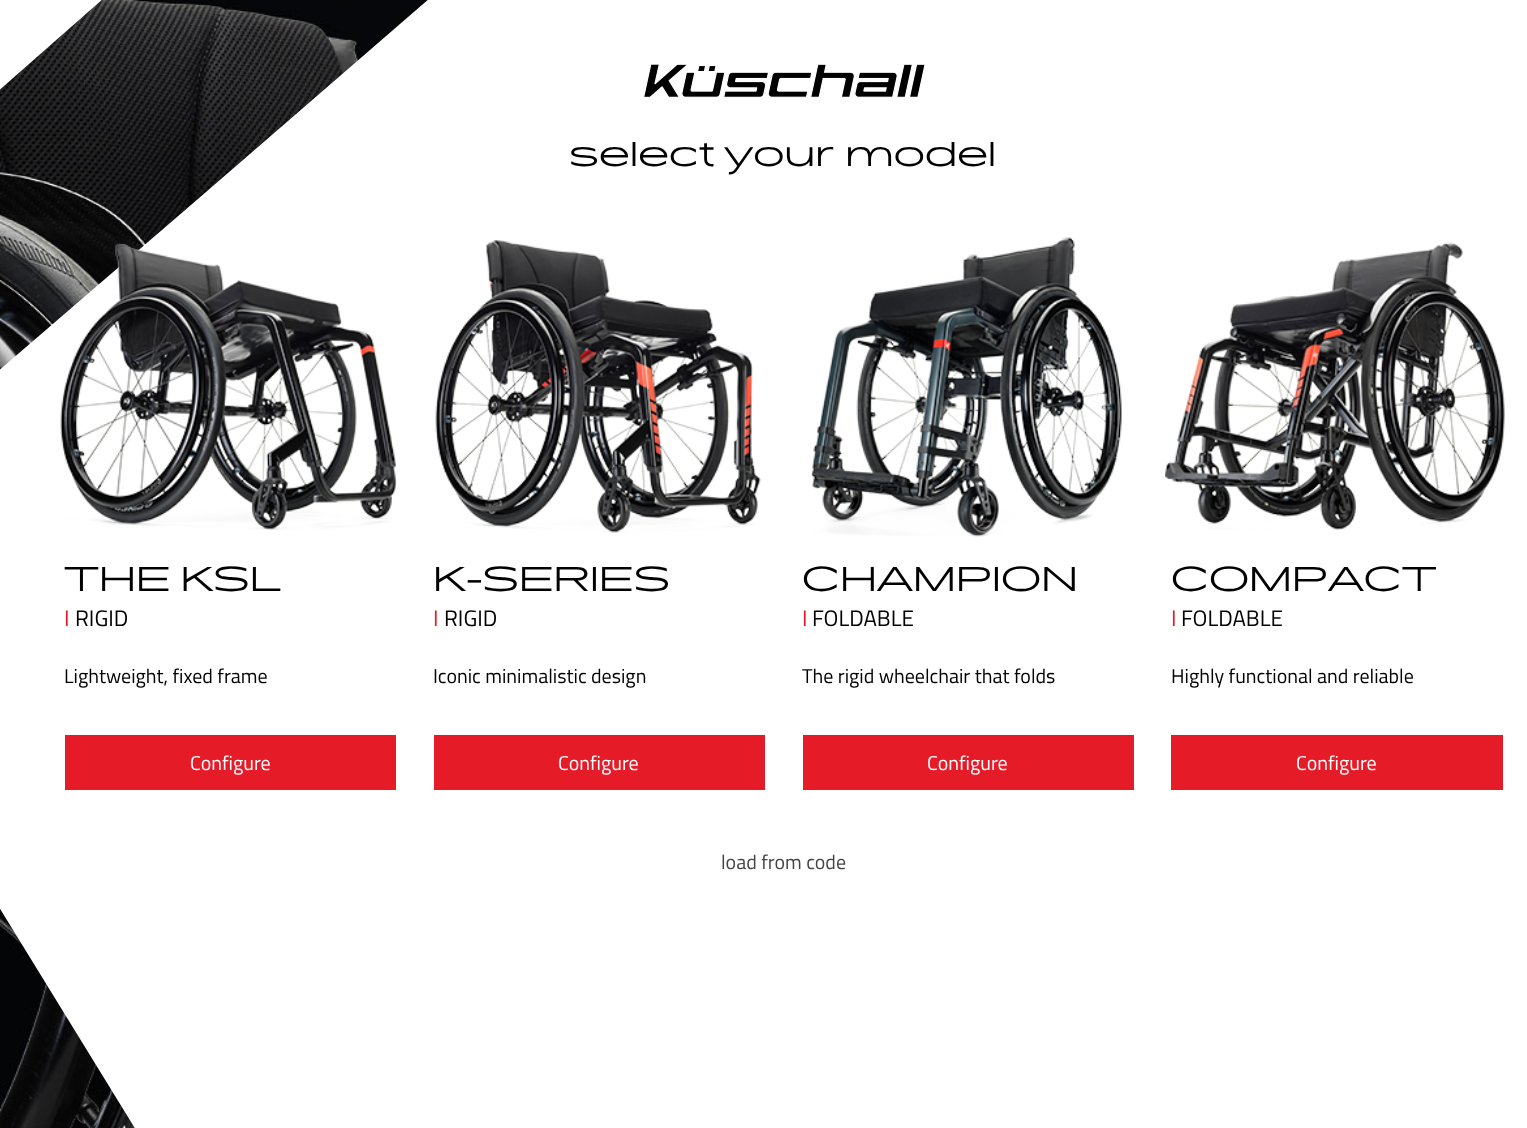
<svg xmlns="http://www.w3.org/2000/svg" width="1527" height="1128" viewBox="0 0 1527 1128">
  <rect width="100%" height="100%" fill="#fff"/>
  <image x="0" y="0" width="428" height="1128" href="img/1.png"/>
  <path d="M-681 689L104-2H-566L-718 668C-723 689-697 703-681 689ZM-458 766L-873 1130H-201L-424 772C-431 760-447 757-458 766ZM430-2C219 181 8 363-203 544C-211 551-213 563-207 572L136 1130H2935V-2ZM-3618-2V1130H-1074L-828-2Z" fill="#fff"/>
  <image x="643" y="64" width="282" height="34" href="img/2.png"/>
  <image x="60" y="243" width="337" height="287" href="img/3.png"/>
  <path d="M65 735h331v55H65z" fill="#e51b27"/>
  <image x="435" y="240" width="326" height="293" href="img/4.png"/>
  <path d="M434 735h331v55H434z" fill="#e51b27"/>
  <image x="810" y="237" width="312" height="300" href="img/5.png"/>
  <path d="M803 735h331v55H803z" fill="#e51b27"/>
  <image x="1165" y="242" width="340" height="288" href="img/6.png"/>
  <path d="M1171 735h332v55H1171z" fill="#e51b27"/>
  <g font-family="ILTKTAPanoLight" font-size="33.3" font-weight="300" fill="#000">
    <text x="569" y="166">select your model</text>
    <text x="64" y="591">THE KSL</text>
  </g>
  <text x="64" y="626" font-family="Titillium Web" font-size="22.5" fill="#e51b27">I</text>
  <text x="75" y="626" font-family="Titillium Web" font-size="22.5" fill="#000">RIGID</text>
  <text x="64" y="683" font-family="Titillium Web" font-size="20" fill="#000">Lightweight, fixed frame</text>
  <text x="190" y="770" font-family="Titillium Web" font-size="20" fill="#fff">Configure</text>
  <text x="433" y="591" font-family="ILTKTAPanoLight" font-size="33.3" font-weight="300" fill="#000">K-SERIES</text>
  <text x="433" y="626" font-family="Titillium Web" font-size="22.5" fill="#e51b27">I</text>
  <text x="444" y="626" font-family="Titillium Web" font-size="22.5" fill="#000">RIGID</text>
  <text x="433" y="683" font-family="Titillium Web" font-size="20" fill="#000">Iconic minimalistic design</text>
  <text x="558" y="770" font-family="Titillium Web" font-size="20" fill="#fff">Configure</text>
  <text x="802" y="591" font-family="ILTKTAPanoLight" font-size="33.3" font-weight="300" fill="#000">CHAMPION</text>
  <text x="802" y="626" font-family="Titillium Web" font-size="22.5" fill="#e51b27">I</text>
  <text x="812" y="626" font-family="Titillium Web" font-size="22.5" fill="#000">FOLDABLE</text>
  <text x="802" y="683" font-family="Titillium Web" font-size="20" fill="#000">The rigid wheelchair that folds</text>
  <text x="927" y="770" font-family="Titillium Web" font-size="20" fill="#fff">Configure</text>
  <text x="1171" y="591" font-family="ILTKTAPanoLight" font-size="33.3" font-weight="300" fill="#000">COMPACT</text>
  <text x="1171" y="626" font-family="Titillium Web" font-size="22.5" fill="#e51b27">I</text>
  <text x="1181" y="626" font-family="Titillium Web" font-size="22.5" fill="#000">FOLDABLE</text>
  <text x="1171" y="683" font-family="Titillium Web" font-size="20" fill="#000">Highly functional and reliable</text>
  <text x="1296" y="770" font-family="Titillium Web" font-size="20" fill="#fff">Configure</text>
  <text x="721" y="869" font-family="Titillium Web" font-size="20" fill="#444">load from code</text>
</svg>
